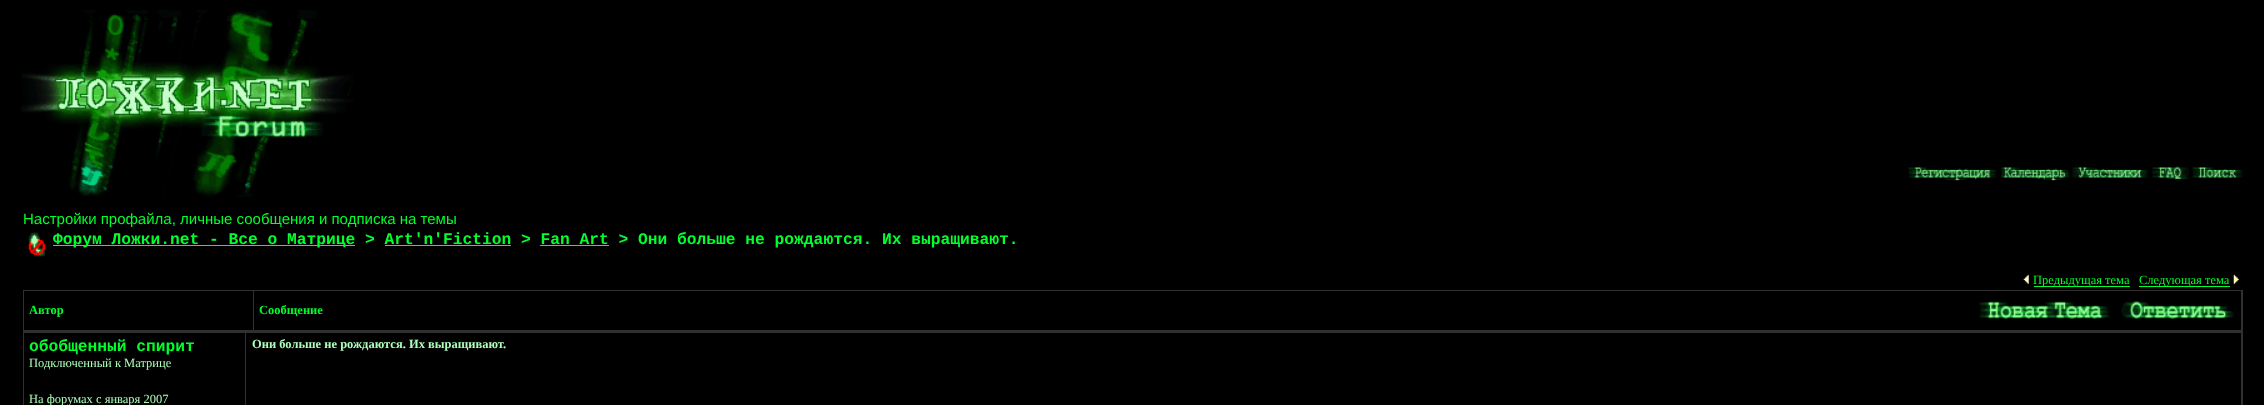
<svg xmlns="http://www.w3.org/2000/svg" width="2264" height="405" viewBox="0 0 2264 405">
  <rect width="100%" height="100%" fill="#000"/>
  <image x="21" y="10" width="333" height="187" href="img/1.png"/>
  <image x="1908" y="167" width="89" height="14" href="img/2.png"/>
  <image x="2001" y="167" width="68" height="14" href="img/3.png"/>
  <image x="2072" y="167" width="76" height="11" href="img/4.png"/>
  <image x="2152" y="166" width="37" height="14" href="img/5.png"/>
  <image x="2192" y="167" width="51" height="11" href="img/6.png"/>
  <image x="28" y="232" width="18" height="25" href="img/7.png"/>
  <path d="M53 245h302v1H53z" fill="#00ff2d"/>
  <path d="M385 245h126v1H385z" fill="#00ff2d"/>
  <path d="M540 245h69v1H540z" fill="#00ff2d"/>
  <image x="2023" y="274" width="6" height="10" href="img/8.png"/>
  <path d="M2034 286h96v1H2034z" fill="#00ff2d"/>
  <path d="M2139 286h91v1H2139z" fill="#00ff2d"/>
  <image x="2233" y="274" width="6" height="10" href="img/9.png"/>
  <path d="M23 290h2220v115H23z" fill="#303030"/>
  <path d="M24 291h229v39H24z" fill="#000"/>
  <path d="M254 291h1987v39H254z" fill="#000"/>
  <image x="1979" y="301" width="131" height="19" href="img/10.png"/>
  <image x="2121" y="300" width="113" height="20" href="img/11.png"/>
  <path d="M24 333h221v72H24z" fill="#000"/>
  <path d="M246 333h1995v72H246z" fill="#000"/>
  <text x="23" y="224" font-family="Liberation Sans" font-size="15" fill="#00ff2d">Настройки профайла, личные сообщения и подписка на темы</text>
  <text x="53" y="244" font-family="Liberation Mono" font-size="16.25" font-weight="bold" fill="#00ff2d">Форум Ложки.net - Все о Матрице &gt; Art'n'Fiction &gt; Fan Art &gt; Они больше не рождаются. Их выращивают.</text>
  <g font-family="Liberation Serif" font-size="12.5" fill="#00ff2d">
    <text x="2033" y="284">Предыдущая тема</text>
    <text x="2139" y="284">Следующая тема</text>
  </g>
  <g font-family="Liberation Serif" font-size="12.5" font-weight="bold" fill="#00ff2d">
    <text x="29" y="314">Автор</text>
    <text x="259" y="314">Сообщение</text>
  </g>
  <text x="29" y="351" font-family="Liberation Mono" font-size="16.25" font-weight="bold" fill="#00ff2d">обобщенный спирит</text>
  <g font-family="Liberation Serif" font-size="12.5" fill="#adffbb">
    <text x="29" y="367">Подключенный к Матрице</text>
    <text x="29" y="403">На форумах с января 2007</text>
  </g>
  <text x="252" y="348" font-family="Liberation Serif" font-size="12.5" font-weight="bold" fill="#adffbb">Они больше не рождаются. Их выращивают.</text>
</svg>
